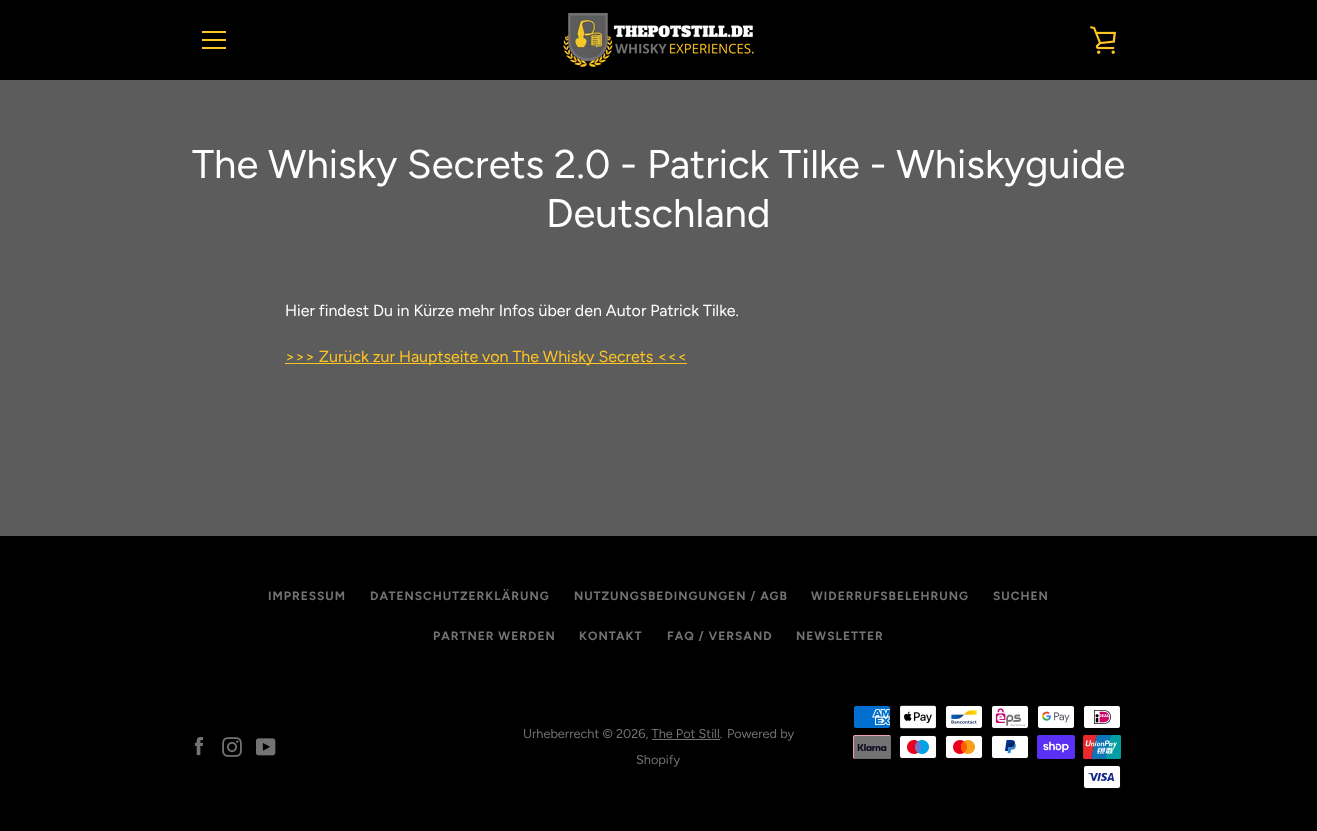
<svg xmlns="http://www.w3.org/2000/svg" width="1317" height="831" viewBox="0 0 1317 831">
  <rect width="100%" height="100%" fill="#000"/>
  <path d="M0 80h1317v456H0z" fill="#5d5c5c"/>
  <path d="M202 31h24v2H202z" fill="#ffc522"/>
  <path d="M202 39h24v2H202z" fill="#ffc522"/>
  <path d="M202 47h24v2H202z" fill="#ffc522"/>
  <image x="563" y="12" width="191" height="55" href="img/1.png"/>
  <image x="1090" y="26" width="26" height="28" href="img/2.png"/>
  <path d="M285 363h402v1H285z" fill="#ffc522"/>
  <image x="194" y="737" width="10" height="19" href="img/3.png"/>
  <image x="222" y="737" width="20" height="20" href="img/4.png"/>
  <image x="256" y="738" width="20" height="18" href="img/5.png"/>
  <path d="M652 739h68v1H652z" fill="#737373"/>
  <image x="854" y="706" width="36" height="22" href="img/6.png"/>
  <image x="900" y="705" width="36" height="24" href="img/7.png"/>
  <image x="946" y="706" width="36" height="22" href="img/8.png"/>
  <image x="991" y="705" width="38" height="24" href="img/9.png"/>
  <image x="1038" y="706" width="36" height="22" href="img/10.png"/>
  <image x="1084" y="706" width="36" height="22" href="img/11.png"/>
  <image x="853" y="735" width="38" height="24" href="img/12.png"/>
  <image x="899" y="735" width="38" height="24" href="img/13.png"/>
  <image x="945" y="735" width="38" height="24" href="img/14.png"/>
  <image x="991" y="735" width="38" height="24" href="img/15.png"/>
  <image x="1037" y="735" width="38" height="24" href="img/16.png"/>
  <image x="1083" y="735" width="38" height="24" href="img/17.png"/>
  <image x="1083" y="765" width="38" height="24" href="img/18.png"/>
  <g font-family="Figtree" font-size="40" fill="#fff">
    <text x="192" y="178">The Whisky Secrets 2.0 - Patrick Tilke - Whiskyguide</text>
    <text x="546" y="227">Deutschland</text>
  </g>
  <text x="285" y="316" font-family="Figtree" font-size="16" fill="#fff">Hier findest Du in Kürze mehr Infos über den Autor Patrick Tilke.</text>
  <text x="285" y="362" font-family="Figtree" font-size="16" fill="#ffc522">&gt;&gt;&gt; Zurück zur Hauptseite von The Whisky Secrets &lt;&lt;&lt;</text>
  <g font-family="Figtree" font-size="12" font-weight="bold" letter-spacing="1" fill="#737373">
    <text x="268" y="600">IMPRESSUM</text>
    <text x="370" y="600">DATENSCHUTZERKLÄRUNG</text>
    <text x="574" y="600">NUTZUNGSBEDINGUNGEN / AGB</text>
    <text x="811" y="600">WIDERRUFSBELEHRUNG</text>
    <text x="993" y="600">SUCHEN</text>
    <text x="433" y="640">PARTNER WERDEN</text>
    <text x="579" y="640">KONTAKT</text>
    <text x="667" y="640">FAQ / VERSAND</text>
    <text x="796" y="640">NEWSLETTER</text>
  </g>
  <g font-family="Figtree" font-size="12.75" fill="#737373">
    <text x="523" y="738">Urheberrecht © 2026, The Pot Still.</text>
    <text x="727" y="738">Powered by</text>
    <text x="636" y="764">Shopify</text>
  </g>
</svg>
